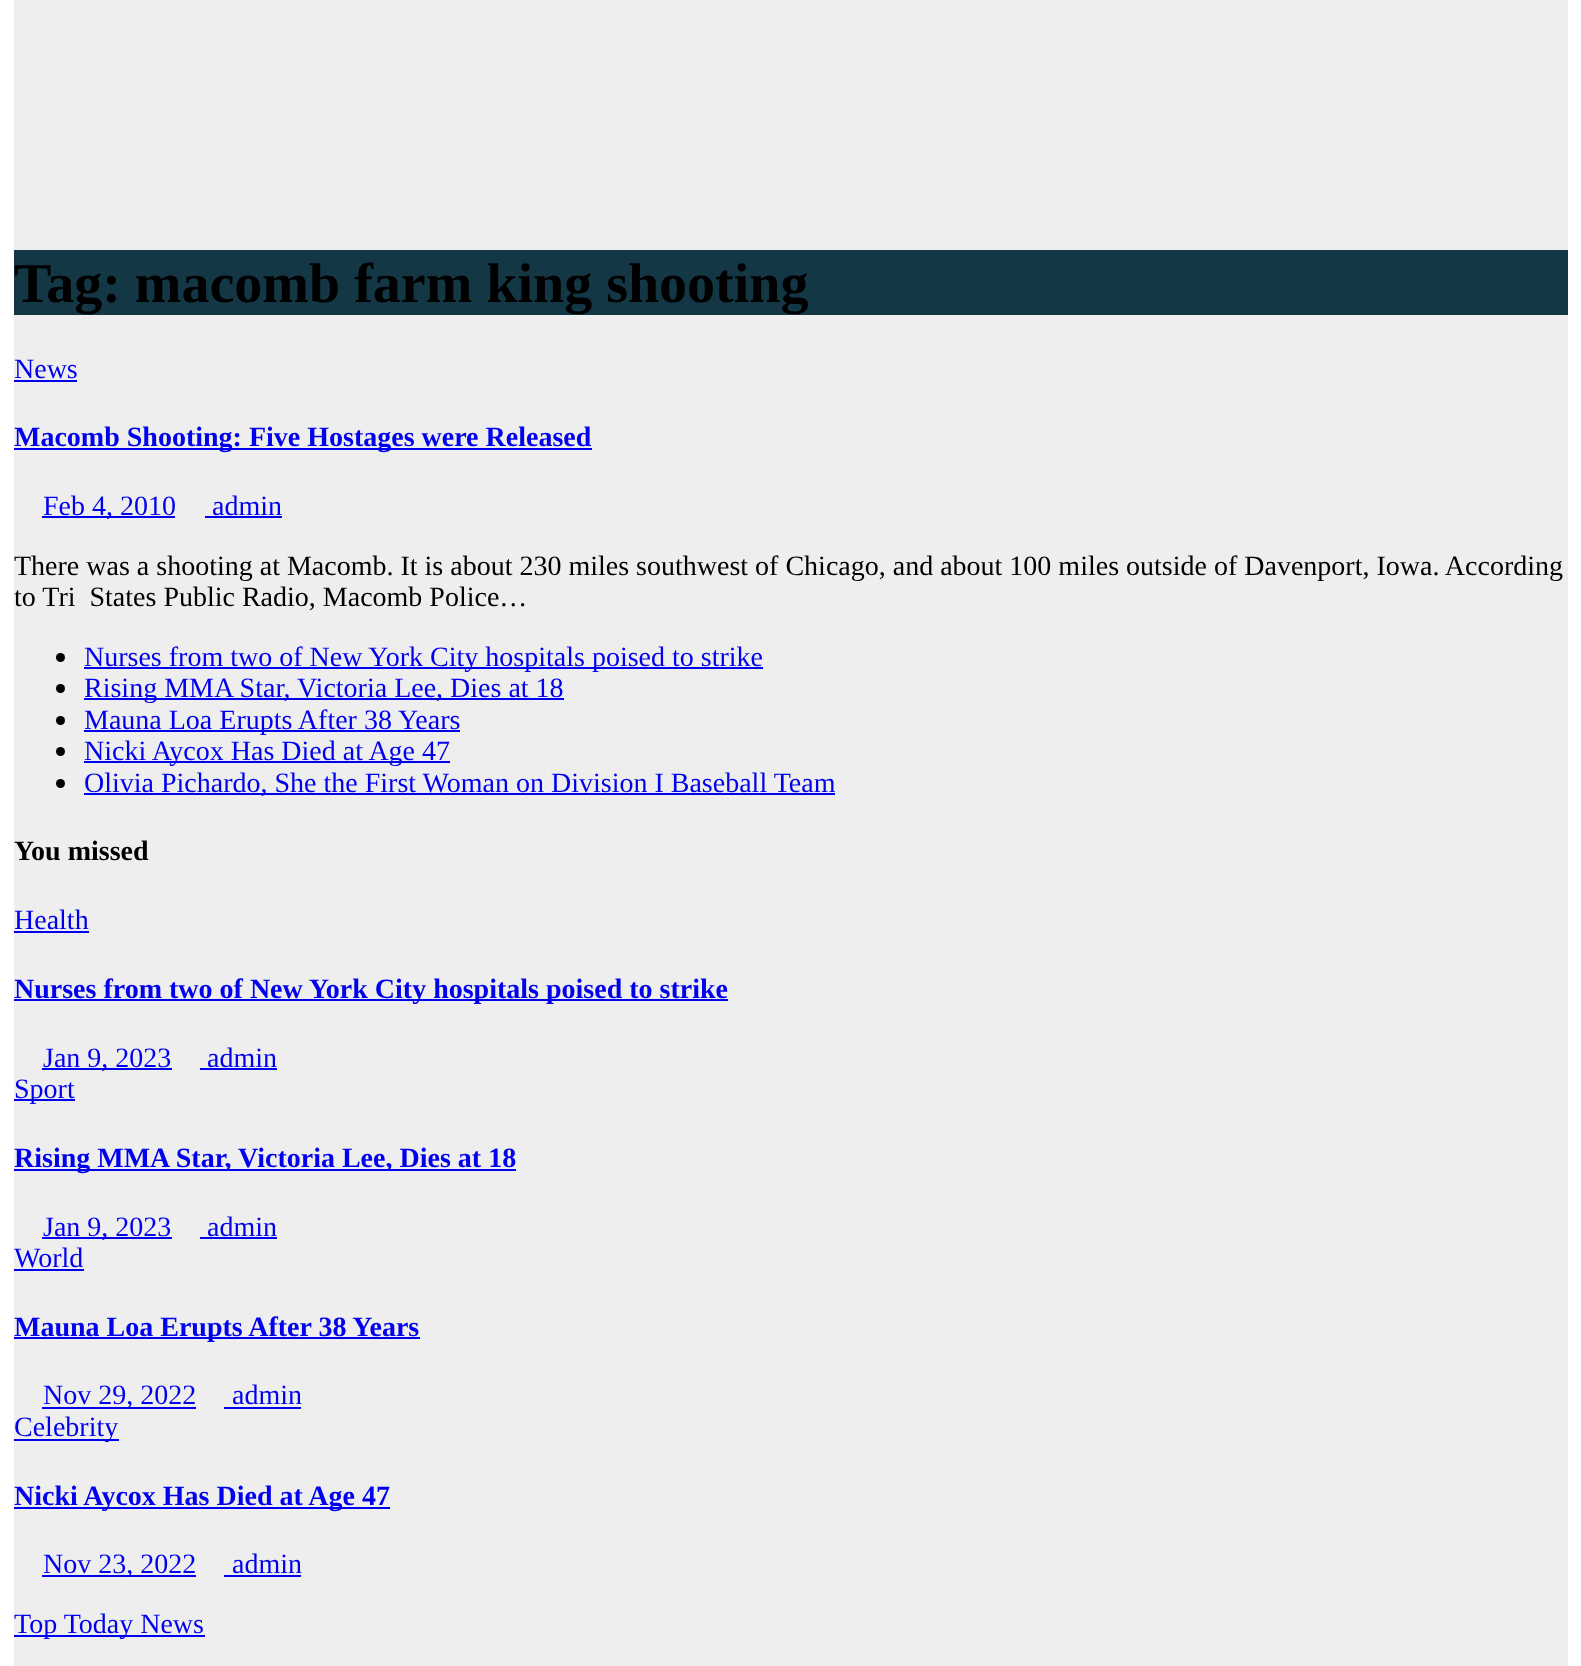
<svg xmlns="http://www.w3.org/2000/svg" width="1581" height="1666" viewBox="0 0 1581 1666">
  <rect width="100%" height="100%" fill="#fff"/>
  <path d="M14 0h1554v1666H14z" fill="#eee"/>
  <path d="M14 250h1554v65H14z" fill="#143745"/>
  <path d="M14 380h63v2H14z" fill="#00e"/>
  <path d="M14 448h578v2H14z" fill="#00e"/>
  <path d="M42 516h133v2H42z" fill="#00e"/>
  <path d="M205 516h77v2H205z" fill="#00e"/>
  <circle cx="60.5" cy="657.5" r="4.5" fill="#000"/>
  <path d="M84 667h679v2H84z" fill="#00e"/>
  <circle cx="60.5" cy="688.5" r="4.5" fill="#000"/>
  <path d="M84 698h480v2H84z" fill="#00e"/>
  <circle cx="60.5" cy="720.5" r="4.5" fill="#000"/>
  <path d="M84 730h376v2H84z" fill="#00e"/>
  <circle cx="60.5" cy="751.5" r="4.5" fill="#000"/>
  <path d="M84 761h366v2H84z" fill="#00e"/>
  <circle cx="60.5" cy="783.5" r="4.5" fill="#000"/>
  <path d="M84 793h751v2H84z" fill="#00e"/>
  <path d="M14 931h75v2H14z" fill="#00e"/>
  <path d="M14 999h714v2H14z" fill="#00e"/>
  <path d="M42 1068h130v2H42z" fill="#00e"/>
  <path d="M200 1068h77v2H200z" fill="#00e"/>
  <path d="M14 1099h61v2H14z" fill="#00e"/>
  <path d="M14 1169h502v2H14z" fill="#00e"/>
  <path d="M42 1237h130v2H42z" fill="#00e"/>
  <path d="M200 1237h77v2H200z" fill="#00e"/>
  <path d="M14 1269h70v2H14z" fill="#00e"/>
  <path d="M14 1337h406v2H14z" fill="#00e"/>
  <path d="M42 1407h154v2H42z" fill="#00e"/>
  <path d="M224 1407h77v2H224z" fill="#00e"/>
  <path d="M14 1439h105v2H14z" fill="#00e"/>
  <path d="M14 1507h376v2H14z" fill="#00e"/>
  <path d="M42 1575h154v2H42z" fill="#00e"/>
  <path d="M224 1575h77v2H224z" fill="#00e"/>
  <path d="M14 1635h191v2H14z" fill="#00e"/>
  <text x="14" y="302" font-family="Liberation Serif" font-size="56" font-weight="bold" fill="#000">Tag: macomb farm king shooting</text>
  <text x="14" y="378" font-family="Liberation Serif" font-size="28" fill="#00e">News</text>
  <text x="14" y="446" font-family="Liberation Serif" font-size="28" font-weight="bold" fill="#00e">Macomb Shooting: Five Hostages were Released</text>
  <g font-family="Liberation Serif" font-size="28" fill="#00e">
    <text x="43" y="515">Feb 4, 2010</text>
    <text x="212" y="515">admin</text>
  </g>
  <g font-family="Liberation Serif" font-size="28" fill="#000">
    <text x="14" y="575">There was a shooting at Macomb. It is about 230 miles southwest of Chicago, and about 100 miles outside of Davenport, Iowa. According</text>
    <text x="14" y="606" xml:space="preserve">to Tri  States Public Radio, Macomb Police…</text>
  </g>
  <g font-family="Liberation Serif" font-size="28" fill="#00e">
    <text x="84" y="666">Nurses from two of New York City hospitals poised to strike</text>
    <text x="84" y="697">Rising MMA Star, Victoria Lee, Dies at 18</text>
    <text x="84" y="729">Mauna Loa Erupts After 38 Years</text>
    <text x="84" y="760">Nicki Aycox Has Died at Age 47</text>
    <text x="84" y="792">Olivia Pichardo, She the First Woman on Division I Baseball Team</text>
  </g>
  <text x="14" y="860" font-family="Liberation Serif" font-size="28" font-weight="bold" fill="#000">You missed</text>
  <text x="14" y="929" font-family="Liberation Serif" font-size="28" fill="#00e">Health</text>
  <text x="14" y="998" font-family="Liberation Serif" font-size="28" font-weight="bold" fill="#00e">Nurses from two of New York City hospitals poised to strike</text>
  <g font-family="Liberation Serif" font-size="28" fill="#00e">
    <text x="43" y="1067">Jan 9, 2023</text>
    <text x="207" y="1067">admin</text>
    <text x="14" y="1098">Sport</text>
  </g>
  <text x="14" y="1167" font-family="Liberation Serif" font-size="28" font-weight="bold" fill="#00e">Rising MMA Star, Victoria Lee, Dies at 18</text>
  <g font-family="Liberation Serif" font-size="28" fill="#00e">
    <text x="43" y="1236">Jan 9, 2023</text>
    <text x="207" y="1236">admin</text>
    <text x="14" y="1267">World</text>
  </g>
  <text x="14" y="1336" font-family="Liberation Serif" font-size="28" font-weight="bold" fill="#00e">Mauna Loa Erupts After 38 Years</text>
  <g font-family="Liberation Serif" font-size="28" fill="#00e">
    <text x="43" y="1404">Nov 29, 2022</text>
    <text x="232" y="1404">admin</text>
    <text x="14" y="1436">Celebrity</text>
  </g>
  <text x="14" y="1505" font-family="Liberation Serif" font-size="28" font-weight="bold" fill="#00e">Nicki Aycox Has Died at Age 47</text>
  <g font-family="Liberation Serif" font-size="28" fill="#00e">
    <text x="43" y="1573">Nov 23, 2022</text>
    <text x="232" y="1573">admin</text>
    <text x="14" y="1633">Top Today News</text>
  </g>
</svg>
